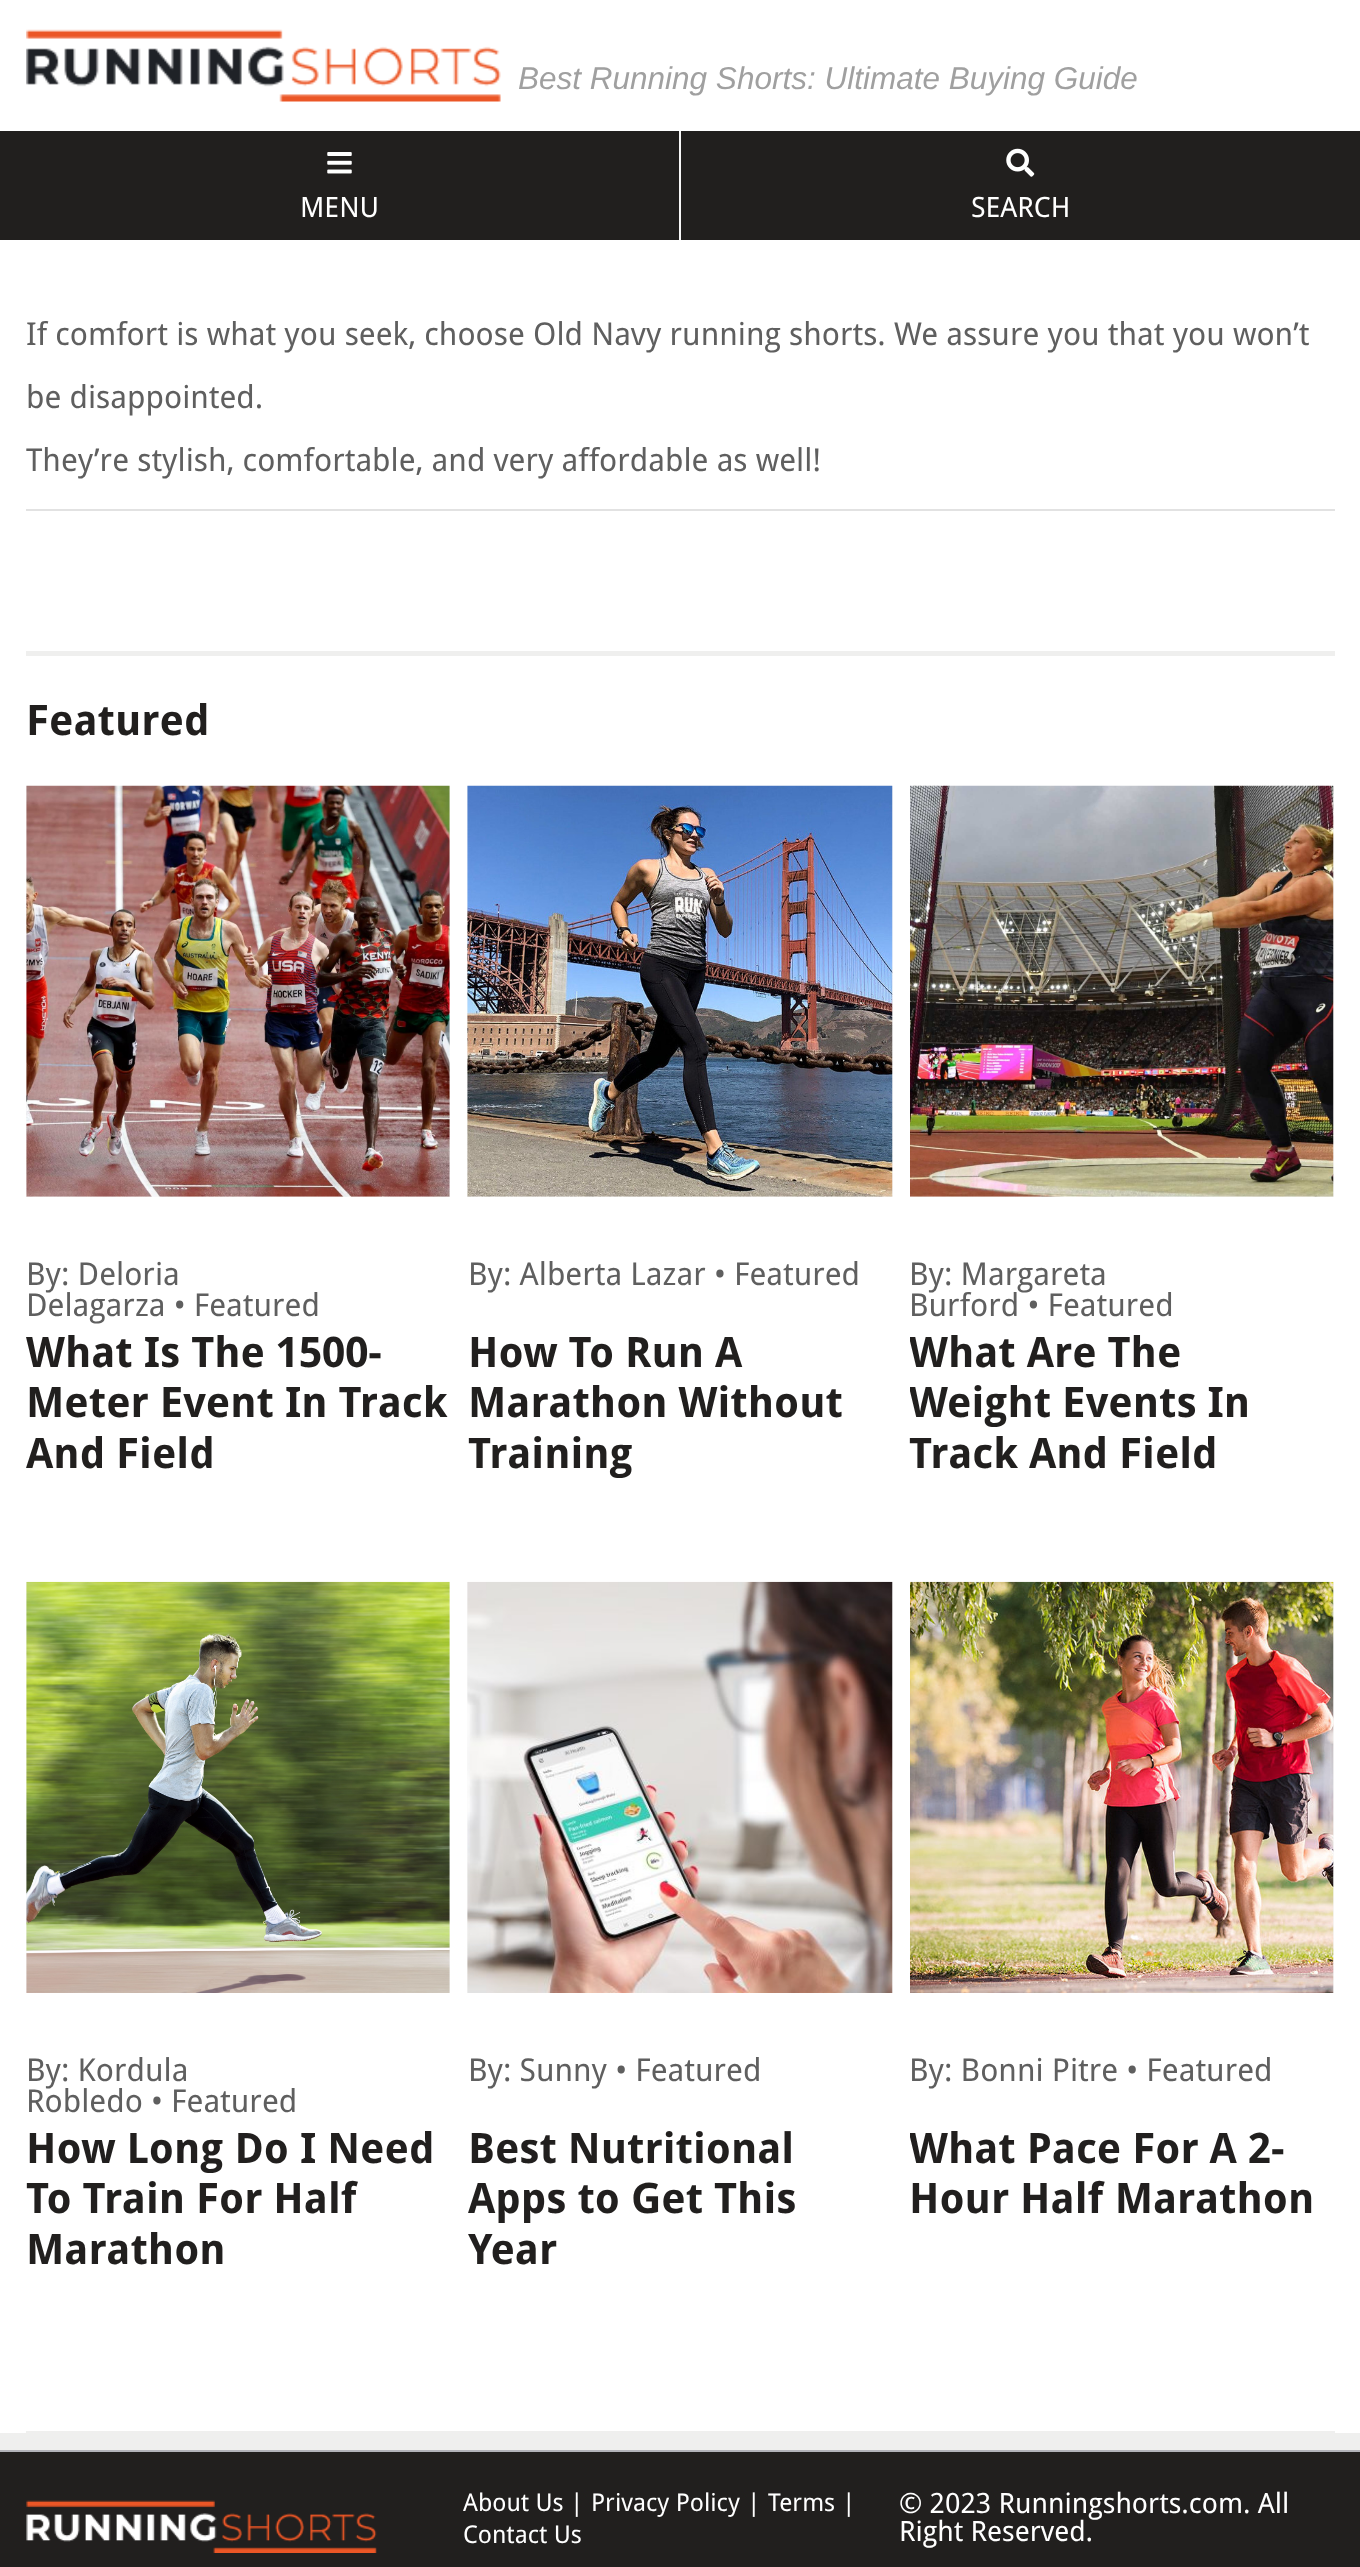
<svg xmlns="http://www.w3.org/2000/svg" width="1360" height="2567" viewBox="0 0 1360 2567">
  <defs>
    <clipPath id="clip1"><path d="M910 786h424v761H910z"/></clipPath>
    <clipPath id="clip2"><path d="M910 1582h424v761H910z"/></clipPath>
  </defs>
  <rect width="100%" height="100%" fill="#fff"/>
  <image x="26" y="29" width="475" height="73" href="img/1.png"/>
  <path d="M0 131h1360v109H0z" fill="#211f1e"/>
  <path d="M679 131h2v109H679z" fill="#f7f7f7"/>
  <image x="327" y="152" width="25" height="22" href="img/2.png"/>
  <image x="1006" y="148" width="29" height="29" href="img/3.png"/>
  <path d="M26 651h1309v5H26z" fill="#efefee"/>
  <path d="M26 509h1309v2H26z" fill="#e2e2e2"/>
  <path d="M26 2431h1309v2H26z" fill="#efefee"/>
  <path d="M26 786h424v411H26z" fill="#f7f7f7"/>
  <image x="26" y="785" width="424" height="412" href="img/4.png"/>
  <path d="M467 786h426v411H467z" fill="#f7f7f7"/>
  <image x="467" y="785" width="426" height="412" href="img/5.png"/>
  <path d="M910 786h424v411H910z" fill="#f7f7f7"/>
  <image x="910" y="785" width="424" height="412" href="img/6.png"/>
  <path d="M26 1582h424v411H26z" fill="#f7f7f7"/>
  <image x="26" y="1581" width="424" height="412" href="img/7.png"/>
  <path d="M467 1582h426v411H467z" fill="#f7f7f7"/>
  <image x="467" y="1581" width="426" height="412" href="img/8.png"/>
  <path d="M1333 1582h1v411H1333z" fill="#f7f7f7"/>
  <image x="910" y="1581" width="424" height="412" href="img/9.png"/>
  <path d="M0 2452h1360v115H0z" fill="#211f1e"/>
  <path d="M0 2433h1360v17H0z" fill="#efefee"/>
  <path d="M0 2450h1360v2H0z" fill="#b2b3b9"/>
  <image x="26" y="2500" width="351" height="53" href="img/10.png"/>
  <text x="518" y="89" font-family="Liberation Sans" font-size="31.5" font-style="italic" fill="#a0a0a0">Best Running Shorts: Ultimate Buying Guide</text>
  <g font-family="Droid Sans" font-size="28" fill="#fff">
    <text x="300" y="217">MENU</text>
    <text x="971" y="217">SEARCH</text>
  </g>
  <g font-family="Droid Sans" font-size="31.5" fill="#5f5f5f">
    <text x="26" y="345">If comfort is what you seek, choose Old Navy running shorts. We assure you that you won’t</text>
    <text x="26" y="408">be disappointed.</text>
    <text x="26" y="471">They’re stylish, comfortable, and very affordable as well!</text>
  </g>
  <text x="26" y="735" font-family="Droid Sans" font-size="42" font-weight="bold" fill="#211f1e">Featured</text>
  <g font-family="Droid Sans" font-size="31.5" fill="#5f5f5f">
    <text x="26" y="1285">By: Deloria</text>
    <text x="26" y="1316">Delagarza • Featured</text>
  </g>
  <g font-family="Droid Sans" font-size="42" font-weight="bold" fill="#211f1e">
    <text x="26" y="1367">What Is The 1500-</text>
    <text x="26" y="1417">Meter Event In Track</text>
    <text x="26" y="1468">And Field</text>
  </g>
  <text x="468" y="1285" font-family="Droid Sans" font-size="31.5" fill="#5f5f5f">By: Alberta Lazar • Featured</text>
  <g font-family="Droid Sans" font-size="42" font-weight="bold" fill="#211f1e">
    <text x="468" y="1367">How To Run A</text>
    <text x="468" y="1417">Marathon Without</text>
    <text x="468" y="1468">Training</text>
  </g>
  <g font-family="Droid Sans" font-size="31.5" fill="#5f5f5f">
    <text x="909" y="1285">By: Margareta</text>
    <text x="909" y="1316">Burford • Featured</text>
  </g>
  <g clip-path="url(#clip1)">
    <g font-family="Droid Sans" font-size="42" font-weight="bold" fill="#211f1e">
      <text x="909" y="1367">What Are The</text>
      <text x="909" y="1417">Weight Events In</text>
    </g>
  </g>
  <text x="909" y="1468" font-family="Droid Sans" font-size="42" font-weight="bold" fill="#211f1e">Track And Field</text>
  <g font-family="Droid Sans" font-size="31.5" fill="#5f5f5f">
    <text x="26" y="2081">By: Kordula</text>
    <text x="26" y="2112">Robledo • Featured</text>
  </g>
  <g font-family="Droid Sans" font-size="42" font-weight="bold" fill="#211f1e">
    <text x="26" y="2163">How Long Do I Need</text>
    <text x="26" y="2213">To Train For Half</text>
    <text x="26" y="2264">Marathon</text>
  </g>
  <text x="468" y="2081" font-family="Droid Sans" font-size="31.5" fill="#5f5f5f">By: Sunny • Featured</text>
  <g font-family="Droid Sans" font-size="42" font-weight="bold" fill="#211f1e">
    <text x="468" y="2163">Best Nutritional</text>
    <text x="468" y="2213">Apps to Get This</text>
    <text x="468" y="2264">Year</text>
  </g>
  <text x="909" y="2081" font-family="Droid Sans" font-size="31.5" fill="#5f5f5f">By: Bonni Pitre • Featured</text>
  <g clip-path="url(#clip2)">
    <text x="909" y="2163" font-family="Droid Sans" font-size="42" font-weight="bold" fill="#211f1e">What Pace For A 2-</text>
  </g>
  <text x="909" y="2213" font-family="Droid Sans" font-size="42" font-weight="bold" fill="#211f1e">Hour Half Marathon</text>
  <g font-family="Droid Sans" font-size="24.5" fill="#fff">
    <text x="463" y="2511">About Us</text>
    <text x="570" y="2511">|</text>
    <text x="591" y="2511">Privacy Policy</text>
    <text x="747" y="2511">|</text>
    <text x="768" y="2511">Terms</text>
    <text x="842" y="2511">|</text>
    <text x="463" y="2543">Contact Us</text>
  </g>
  <g font-family="Droid Sans" font-size="28" fill="#fff">
    <text x="899" y="2513">© 2023 Runningshorts.com. All</text>
    <text x="899" y="2541">Right Reserved.</text>
  </g>
</svg>
